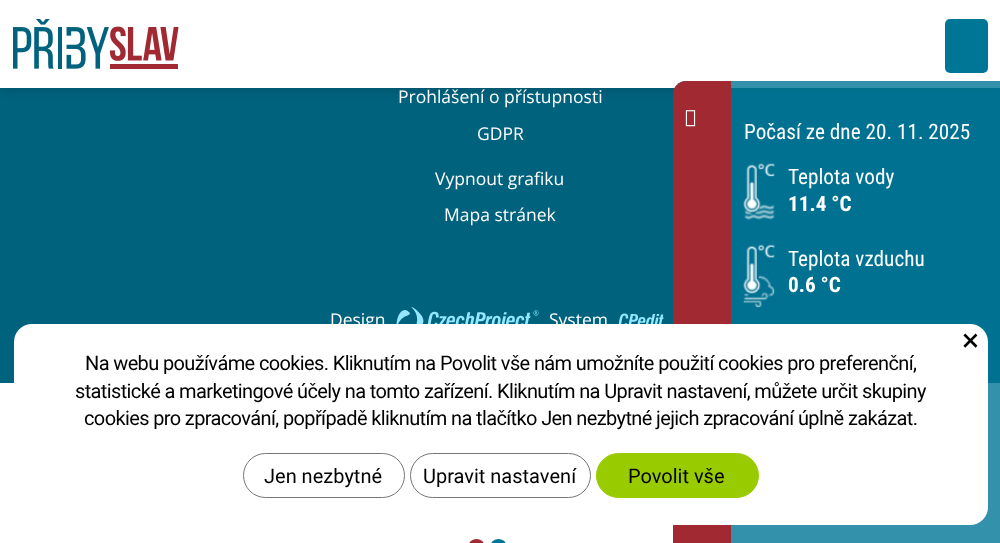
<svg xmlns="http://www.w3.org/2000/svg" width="1000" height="543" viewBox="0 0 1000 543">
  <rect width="100%" height="100%" fill="#fff"/>
  <path d="M0 88h1000v295H0z" fill="#00627d"/>
  <path d="M0 0h1000v88H0z" fill="#00000033" filter="blur(6px)"/>
  <path d="M0 0h1000v88H0z" fill="#fff"/>
  <image x="13" y="19" width="166" height="50" href="img/1.png"/>
  <rect x="945" y="19" width="43" height="54" rx="5" fill="#007696"/>
  <image x="396" y="307" width="143" height="17" href="img/2.png"/>
  <image x="618" y="313" width="46" height="11" href="img/3.png"/>
  <rect x="469" y="539" width="15" height="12" rx="7.5" fill="#a02932"/>
  <rect x="491" y="539" width="15" height="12" rx="7.5" fill="#007696"/>
  <path d="M686 81H1000V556H686C679 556 673 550 673 543V94C673 87 679 81 686 81Z" fill="#007696cc"/>
  <path d="M686 81H731V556H686C679 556 673 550 673 543V94C673 87 679 81 686 81Z" fill="#a02932"/>
  <image x="685" y="110" width="11" height="17" href="img/4.png"/>
  <image x="743" y="163" width="32" height="57" href="img/5.png"/>
  <image x="743" y="244" width="33" height="64" href="img/6.png"/>
  <rect x="14" y="324" width="974" height="201" rx="18" fill="#fff"/>
  <rect x="243.5" y="453.5" width="161" height="44" rx="22" fill="none" stroke="#767676"/>
  <rect x="410.5" y="453.5" width="180" height="44" rx="22" fill="none" stroke="#767676"/>
  <rect x="596.5" y="453.5" width="162" height="44" rx="22" fill="#9c0" stroke="#9c0"/>
  <g font-family="Open Sans" font-size="17.5" fill="#fff">
    <text x="398" y="103">Prohlášení o přístupnosti</text>
    <text x="477" y="140">GDPR</text>
    <text x="435" y="185">Vypnout grafiku</text>
    <text x="444" y="221">Mapa stránek</text>
    <text x="330" y="326">Design</text>
    <text x="549" y="326">System</text>
  </g>
  <g font-family="Roboto Condensed" font-size="21.25" fill="#fff">
    <text x="744" y="139">Počasí ze dne 20. 11. 2025</text>
    <text x="788" y="184">Teplota vody</text>
  </g>
  <text x="788" y="211" font-family="Roboto Condensed" font-size="21.25" font-weight="bold" fill="#fff">11.4 °C</text>
  <text x="788" y="266" font-family="Roboto Condensed" font-size="21.25" fill="#fff">Teplota vzduchu</text>
  <text x="788" y="292" font-family="Roboto Condensed" font-size="21.25" font-weight="bold" fill="#fff">0.6 °C</text>
  <text x="962" y="351" font-family="Roboto" font-size="32" fill="#000">×</text>
  <g font-family="Roboto" font-size="20" letter-spacing="-0.62" fill="#000">
    <text x="85" y="370">Na webu používáme cookies. Kliknutím na Povolit vše nám umožníte použití cookies pro preferenční,</text>
    <text x="75" y="398">statistické a marketingové účely na tomto zařízení. Kliknutím na Upravit nastavení, můžete určit skupiny</text>
    <text x="84" y="425">cookies pro zpracování, popřípadě kliknutím na tlačítko Jen nezbytné jejich zpracování úplně zakázat.</text>
  </g>
  <g font-family="Roboto" font-size="20" fill="#000">
    <text x="264" y="483">Jen nezbytné</text>
    <text x="423" y="483">Upravit nastavení</text>
    <text x="628" y="483">Povolit vše</text>
  </g>
</svg>
